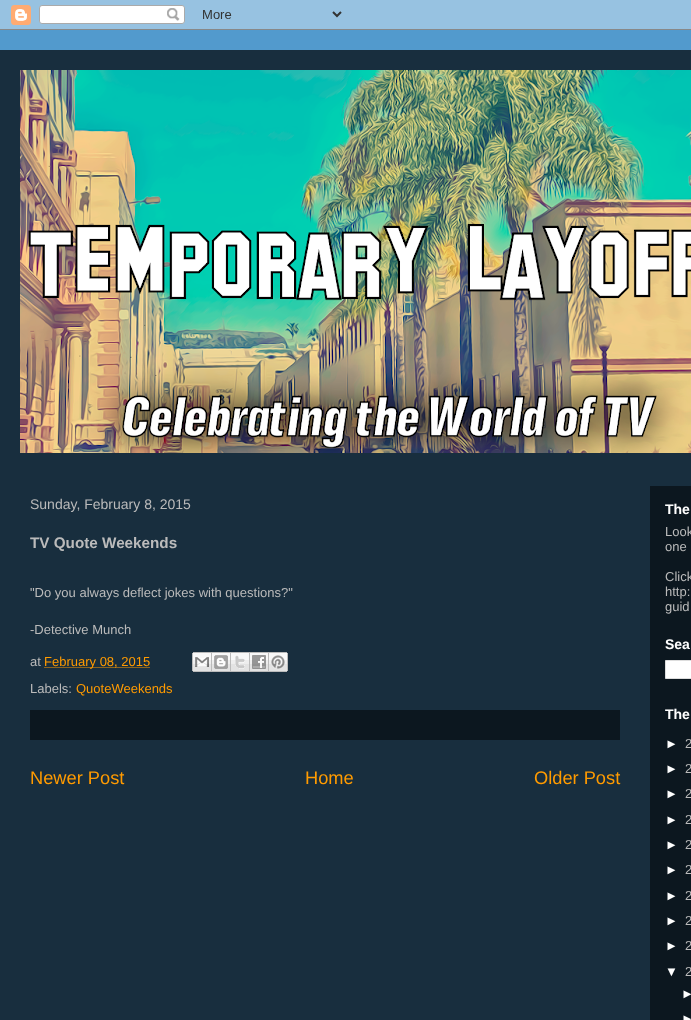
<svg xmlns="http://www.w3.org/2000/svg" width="691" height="1020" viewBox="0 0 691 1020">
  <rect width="100%" height="100%" fill="#529acd"/>
  <image x="0" y="0" width="691" height="30" href="img/1.png"/>
  <path d="M0 50h691v970H0z" fill="#182e3e"/>
  <image x="20" y="70" width="671" height="383" href="img/2.png"/>
  <path d="M650 486h41v534H650z" fill="#0c171f"/>
  <path d="M44.5 667.5H150.5" fill="none" stroke="#ff9b00" stroke-dasharray="1 1"/>
  <image x="192" y="652" width="20" height="20" href="img/3.png"/>
  <image x="212" y="652" width="19" height="20" href="img/4.png"/>
  <image x="231" y="652" width="19" height="20" href="img/5.png"/>
  <image x="250" y="652" width="19" height="20" href="img/6.png"/>
  <image x="269" y="652" width="19" height="20" href="img/7.png"/>
  <path d="M30 710h590v30H30z" fill="#0c171f"/>
  <path d="M665.5 660.5h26v18H665.5z" fill="#fff" stroke="#ddd"/>
  <text x="30" y="509" font-family="Liberation Sans" font-size="14" fill="#bbb">Sunday, February 8, 2015</text>
  <text x="30" y="548" font-family="Liberation Sans" font-size="15.25" font-weight="bold" fill="#bbb">TV Quote Weekends</text>
  <g font-family="Liberation Sans" font-size="13" fill="#bbb">
    <text x="30" y="597">"Do you always deflect jokes with questions?"</text>
    <text x="30" y="634">-Detective Munch</text>
    <text x="30" y="666">at</text>
  </g>
  <text x="44" y="666" font-family="Liberation Sans" font-size="13" fill="#ff9b00">February 08, 2015</text>
  <text x="30" y="693" font-family="Liberation Sans" font-size="13" fill="#bbb">Labels:</text>
  <text x="76" y="693" font-family="Liberation Sans" font-size="13" fill="#ff9b00">QuoteWeekends</text>
  <g font-family="Liberation Sans" font-size="18.25" fill="#ff9b00">
    <text x="30" y="784">Newer Post</text>
    <text x="305" y="784">Home</text>
    <text x="534" y="784">Older Post</text>
  </g>
  <text x="665" y="514" font-family="Liberation Sans" font-size="14" font-weight="bold" fill="#fff">The</text>
  <g font-family="Liberation Sans" font-size="13" fill="#bbb">
    <text x="665" y="536">Look</text>
    <text x="665" y="551">one</text>
    <text x="665" y="581">Click</text>
    <text x="665" y="596">http:</text>
    <text x="665" y="611">guid</text>
  </g>
  <g font-family="Liberation Sans" font-size="14" font-weight="bold" fill="#fff">
    <text x="665" y="649">Sea</text>
    <text x="665" y="719">The</text>
  </g>
  <text x="665" y="748" font-family="Liberation Sans" font-size="13" fill="#fff">►</text>
  <text x="685" y="748" font-family="Liberation Sans" font-size="13" fill="#bbb">2</text>
  <text x="665" y="773" font-family="Liberation Sans" font-size="13" fill="#fff">►</text>
  <text x="685" y="773" font-family="Liberation Sans" font-size="13" fill="#bbb">2</text>
  <text x="665" y="798" font-family="Liberation Sans" font-size="13" fill="#fff">►</text>
  <text x="685" y="798" font-family="Liberation Sans" font-size="13" fill="#bbb">2</text>
  <text x="665" y="824" font-family="Liberation Sans" font-size="13" fill="#fff">►</text>
  <text x="685" y="824" font-family="Liberation Sans" font-size="13" fill="#bbb">2</text>
  <text x="665" y="849" font-family="Liberation Sans" font-size="13" fill="#fff">►</text>
  <text x="685" y="849" font-family="Liberation Sans" font-size="13" fill="#bbb">2</text>
  <text x="665" y="874" font-family="Liberation Sans" font-size="13" fill="#fff">►</text>
  <text x="685" y="874" font-family="Liberation Sans" font-size="13" fill="#bbb">2</text>
  <text x="665" y="900" font-family="Liberation Sans" font-size="13" fill="#fff">►</text>
  <text x="685" y="900" font-family="Liberation Sans" font-size="13" fill="#bbb">2</text>
  <text x="665" y="925" font-family="Liberation Sans" font-size="13" fill="#fff">►</text>
  <text x="685" y="925" font-family="Liberation Sans" font-size="13" fill="#bbb">2</text>
  <text x="665" y="950" font-family="Liberation Sans" font-size="13" fill="#fff">►</text>
  <text x="685" y="950" font-family="Liberation Sans" font-size="13" fill="#bbb">2</text>
  <text x="665" y="976" font-family="Liberation Sans" font-size="13" fill="#fff">▼</text>
  <text x="685" y="976" font-family="Liberation Sans" font-size="13" fill="#bbb">2</text>
  <g font-family="Liberation Sans" font-size="13" fill="#fff">
    <text x="681" y="998">►</text>
    <text x="681" y="1023">►</text>
  </g>
</svg>
